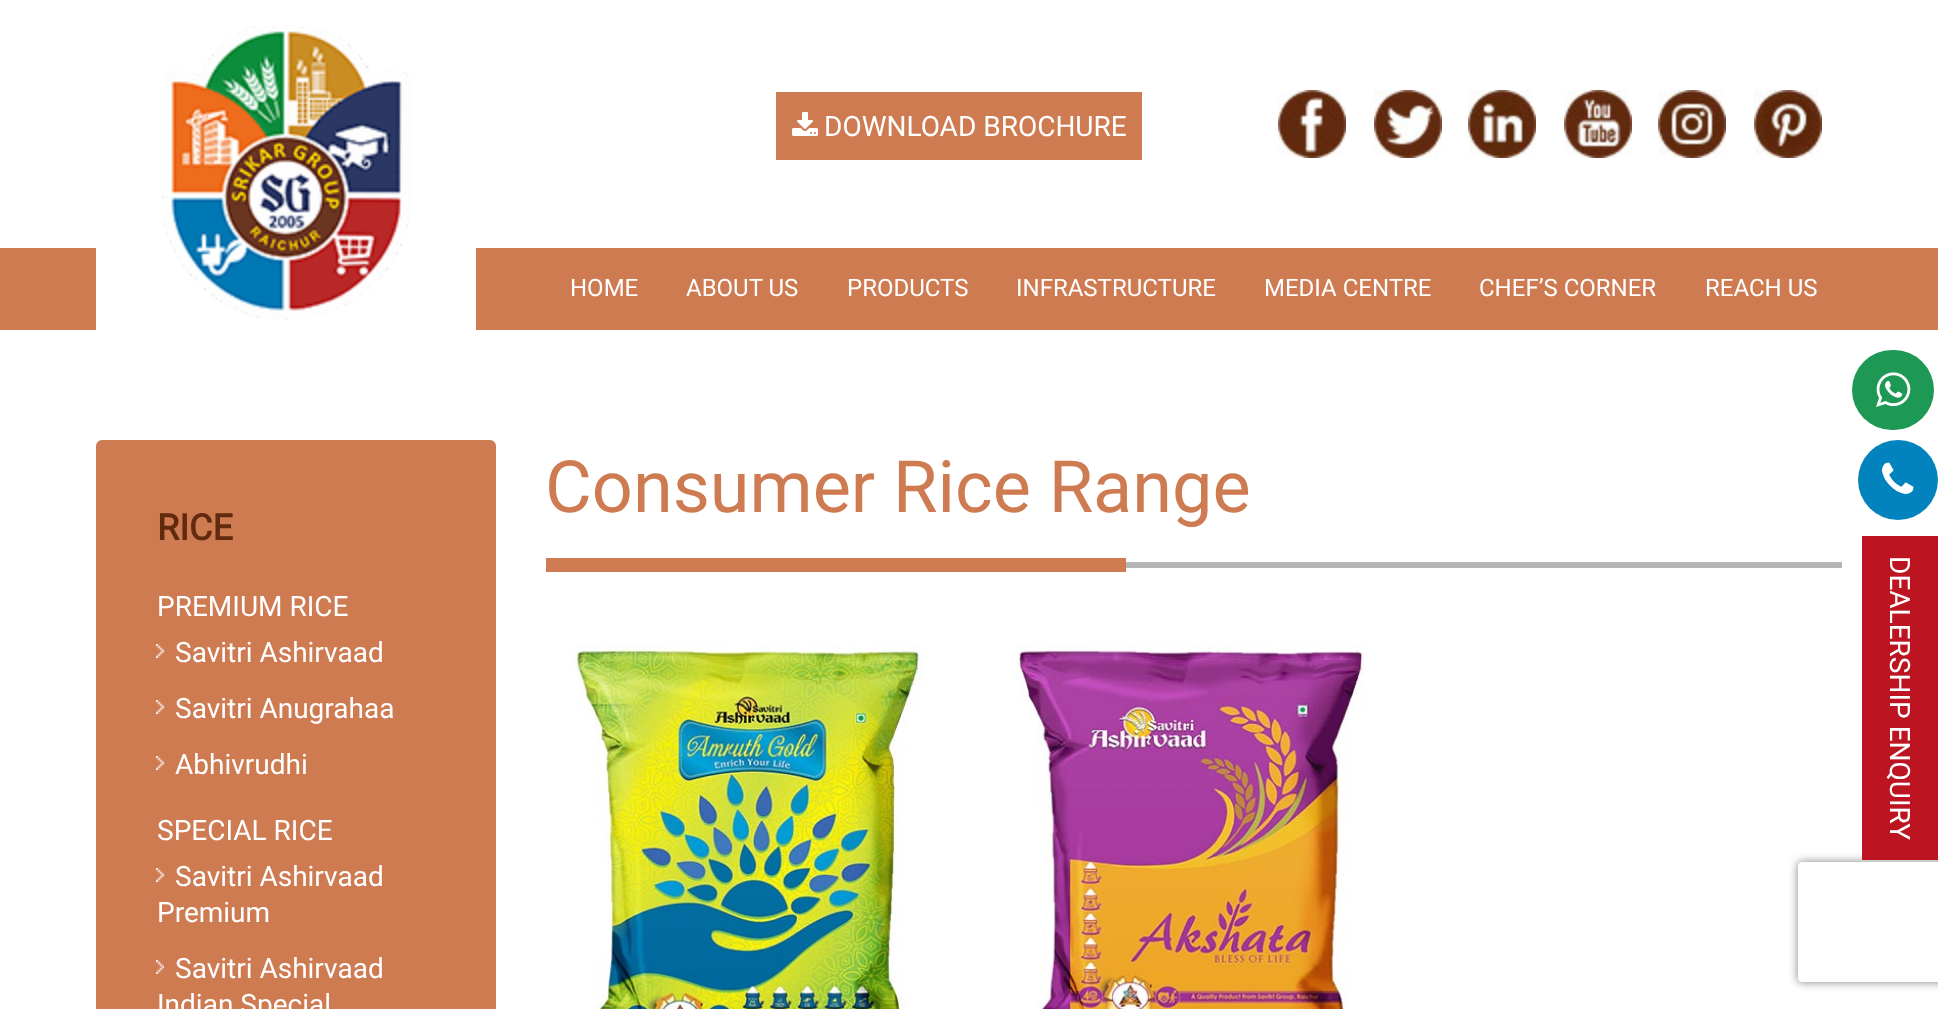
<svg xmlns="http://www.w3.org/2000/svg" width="1938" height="1009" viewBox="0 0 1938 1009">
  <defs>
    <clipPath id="clip1"><path d="M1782 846H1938V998H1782ZM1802 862H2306C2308 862 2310 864 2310 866V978C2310 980 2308 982 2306 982H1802C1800 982 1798 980 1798 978V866C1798 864 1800 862 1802 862Z" clip-rule="evenodd"/></clipPath>
  </defs>
  <rect width="100%" height="100%" fill="#fff"/>
  <path d="M0 248h1938v82H0z" fill="#ce7b52"/>
  <image x="96" y="26" width="380" height="304" href="img/1.png"/>
  <path d="M776 92h366v68H776z" fill="#ce7b52"/>
  <image x="792" y="112" width="26" height="24" href="img/2.png"/>
  <image x="1278" y="90" width="68" height="68" href="img/3.png"/>
  <image x="1374" y="90" width="68" height="68" href="img/4.png"/>
  <image x="1468" y="90" width="68" height="68" href="img/5.png"/>
  <image x="1564" y="90" width="68" height="68" href="img/6.png"/>
  <image x="1658" y="90" width="68" height="68" href="img/7.png"/>
  <image x="1754" y="90" width="68" height="68" href="img/8.png"/>
  <rect x="1852" y="350" width="82" height="80" rx="40" fill="#1d9855"/>
  <image x="1876" y="372" width="35" height="35" href="img/9.png"/>
  <circle cx="1898" cy="480" r="40" fill="#0283bd"/>
  <image x="1882" y="462" width="32" height="32" href="img/10.png"/>
  <g clip-path="url(#clip1)">
    <rect x="1798" y="862" width="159" height="120" rx="4" fill="#808080" filter="blur(5px)"/>
  </g>
  <path d="M1862 536h76v324H1862z" fill="#bc1421"/>
  <path d="M1126 562h716v6H1126z" fill="#b6b6b6"/>
  <path d="M546 558h580v14H546z" fill="#ce7b52"/>
  <image x="566" y="644" width="356" height="365" href="img/11.png"/>
  <image x="1015" y="644" width="350" height="365" href="img/12.png"/>
  <rect x="96" y="440" width="400" height="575" rx="6" fill="#ce7b52"/>
  <image x="156" y="644" width="8" height="14" href="img/13.png"/>
  <image x="156" y="700" width="8" height="14" href="img/13.png"/>
  <image x="156" y="756" width="8" height="14" href="img/13.png"/>
  <image x="156" y="868" width="8" height="14" href="img/13.png"/>
  <image x="156" y="960" width="8" height="14" href="img/13.png"/>
  <text x="824" y="136" font-family="Roboto" font-size="28" fill="#fff">DOWNLOAD BROCHURE</text>
  <g font-family="Roboto" font-size="24" fill="#fff">
    <text x="570" y="296">HOME</text>
    <text x="686" y="296">ABOUT US</text>
    <text x="847" y="296">PRODUCTS</text>
    <text x="1016" y="296">INFRASTRUCTURE</text>
    <text x="1264" y="296">MEDIA CENTRE</text>
    <text x="1479" y="296">CHEF’S CORNER</text>
    <text x="1705" y="296">REACH US</text>
  </g>
  <text x="1890" y="556" transform="rotate(90 1890 556)" font-family="Roboto" font-size="28" fill="#fff">DEALERSHIP ENQUIRY</text>
  <text x="545" y="512" font-family="Roboto" font-size="72" fill="#ce7b52">Consumer Rice Range</text>
  <text x="157" y="540" font-family="Roboto" font-size="36" font-weight="bold" fill="#612a0f">RICE</text>
  <g font-family="Roboto" font-size="28" fill="#fff">
    <text x="157" y="616">PREMIUM RICE</text>
    <text x="175" y="662">Savitri Ashirvaad</text>
    <text x="175" y="718">Savitri Anugrahaa</text>
    <text x="175" y="774">Abhivrudhi</text>
    <text x="157" y="840">SPECIAL RICE</text>
    <text x="175" y="886">Savitri Ashirvaad</text>
    <text x="157" y="922">Premium</text>
    <text x="175" y="978">Savitri Ashirvaad</text>
    <text x="157" y="1014">Indian Special</text>
  </g>
</svg>
